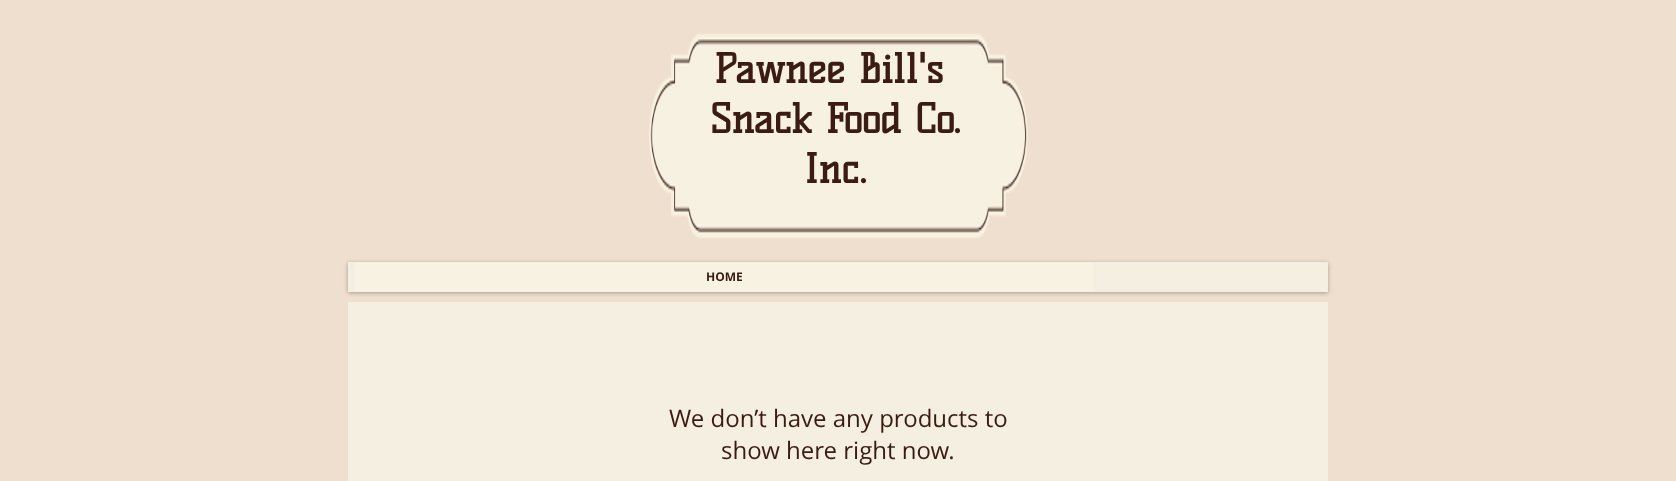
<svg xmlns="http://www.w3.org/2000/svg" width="1676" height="481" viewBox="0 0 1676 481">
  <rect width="100%" height="100%" fill="#efdfcf"/>
  <image x="649" y="33" width="379" height="206" href="img/1.png"/>
  <path d="M348 263h980v30H348z" fill="#0000004d" filter="blur(2px)"/>
  <path d="M348 262h980v30H348z" fill="#f4efe1"/>
  <path d="M355 262h738v30H355z" fill="#f7f2e2"/>
  <path d="M348 302h980v179H348z" fill="#f4efe1"/>
  <g font-family="Kelly Slab" font-size="40" font-weight="bold" fill="#3a1c13">
    <text x="714" y="83">Pawnee Bill's</text>
    <text x="710" y="133">Snack Food Co.</text>
    <text x="804" y="183">Inc.</text>
  </g>
  <text x="706" y="281" font-family="Open Sans" font-size="12" font-weight="bold" fill="#3a1c13">HOME</text>
  <g font-family="Open Sans" font-size="24" fill="#3a1c13">
    <text x="669" y="427">We don’t have any products to</text>
    <text x="721" y="459">show here right now.</text>
  </g>
</svg>
